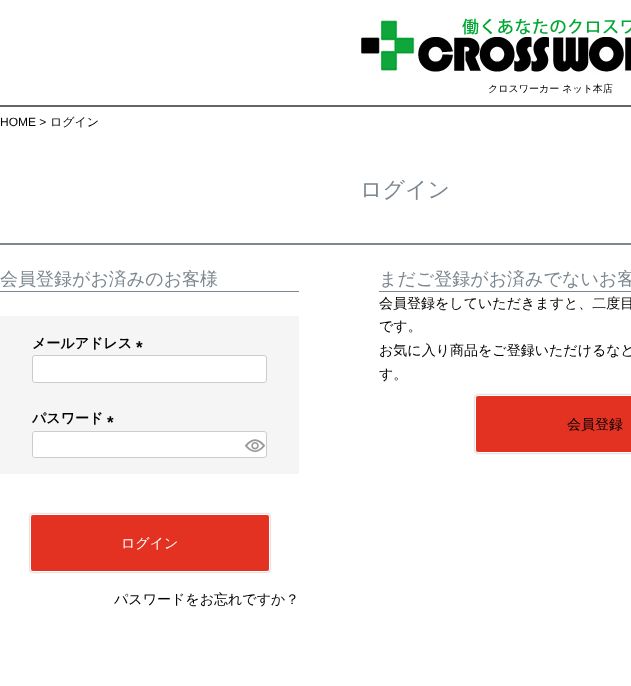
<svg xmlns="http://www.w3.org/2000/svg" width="631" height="686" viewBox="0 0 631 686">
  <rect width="100%" height="100%" fill="#fff"/>
  <path d="M0 105h631v2H0z" fill="#646464"/>
  <image x="361" y="18" width="270" height="57" href="img/1.png"/>
  <path d="M0 243h631v2H0z" fill="#7c8790"/>
  <path d="M0 291h299v1H0z" fill="#7c8790"/>
  <path d="M0 316h299v158H0z" fill="#f5f5f5"/>
  <rect x="32.5" y="355.5" width="234" height="27" rx="2.5" fill="#fff" stroke="#ccc"/>
  <rect x="32.5" y="431.5" width="234" height="26" rx="2.5" fill="#fff" stroke="#ccc"/>
  <rect x="33" y="432" width="207" height="25" rx="3" fill="#fff"/>
  <image x="244" y="439" width="22" height="13" href="img/2.png"/>
  <rect x="30" y="514" width="240" height="58" rx="3" fill="#b2b2b2" filter="blur(1px)"/>
  <rect x="30.5" y="514.5" width="239" height="57" rx="2.5" fill="#e33222" stroke="#fff"/>
  <path d="M379 291h252v1H379z" fill="#7c8790"/>
  <rect x="475" y="395" width="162" height="58" rx="3" fill="#b2b2b2" filter="blur(1px)"/>
  <rect x="475.5" y="395.5" width="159" height="57" rx="2.5" fill="#e33222" stroke="#fff"/>
  <text x="488" y="92" font-family="WenQuanYi Zen Hei" font-size="10" font-weight="500" fill="#000">クロスワーカー ネット本店</text>
  <text x="0" y="126" font-family="Liberation Sans" font-size="12" fill="#000">HOME &gt;</text>
  <text x="50" y="126" font-family="WenQuanYi Zen Hei" font-size="12" font-weight="500" fill="#000">ログイン</text>
  <text x="360" y="197" font-family="WenQuanYi Zen Hei" font-size="22" font-weight="500" fill="#7c8790">ログイン</text>
  <text x="0" y="285" font-family="WenQuanYi Zen Hei" font-size="18" font-weight="500" fill="#7c8790">会員登録がお済みのお客様</text>
  <text x="32" y="348" font-family="WenQuanYi Zen Hei" font-size="14" font-weight="bold" fill="#000">メールアドレス</text>
  <text x="136" y="353" font-family="Liberation Sans" font-size="17" font-weight="bold" fill="#000">*</text>
  <text x="32" y="423" font-family="WenQuanYi Zen Hei" font-size="14" font-weight="bold" fill="#000">パスワード</text>
  <text x="107" y="428" font-family="Liberation Sans" font-size="17" font-weight="bold" fill="#000">*</text>
  <text x="121" y="548" font-family="WenQuanYi Zen Hei" font-size="14" font-weight="500" fill="#fff">ログイン</text>
  <text x="114" y="604" font-family="WenQuanYi Zen Hei" font-size="14" font-weight="500" fill="#000">パスワードをお忘れですか？</text>
  <text x="379" y="285" font-family="WenQuanYi Zen Hei" font-size="18" font-weight="500" fill="#7c8790">まだご登録がお済みでないお客</text>
  <g font-family="WenQuanYi Zen Hei" font-size="14" font-weight="500" fill="#000">
    <text x="379" y="308">会員登録をしていただきますと、二度目</text>
    <text x="379" y="331">です。</text>
    <text x="379" y="355">お気に入り商品をご登録いただけるなど</text>
    <text x="379" y="379">す。</text>
    <text x="567" y="429">会員登録</text>
  </g>
</svg>
